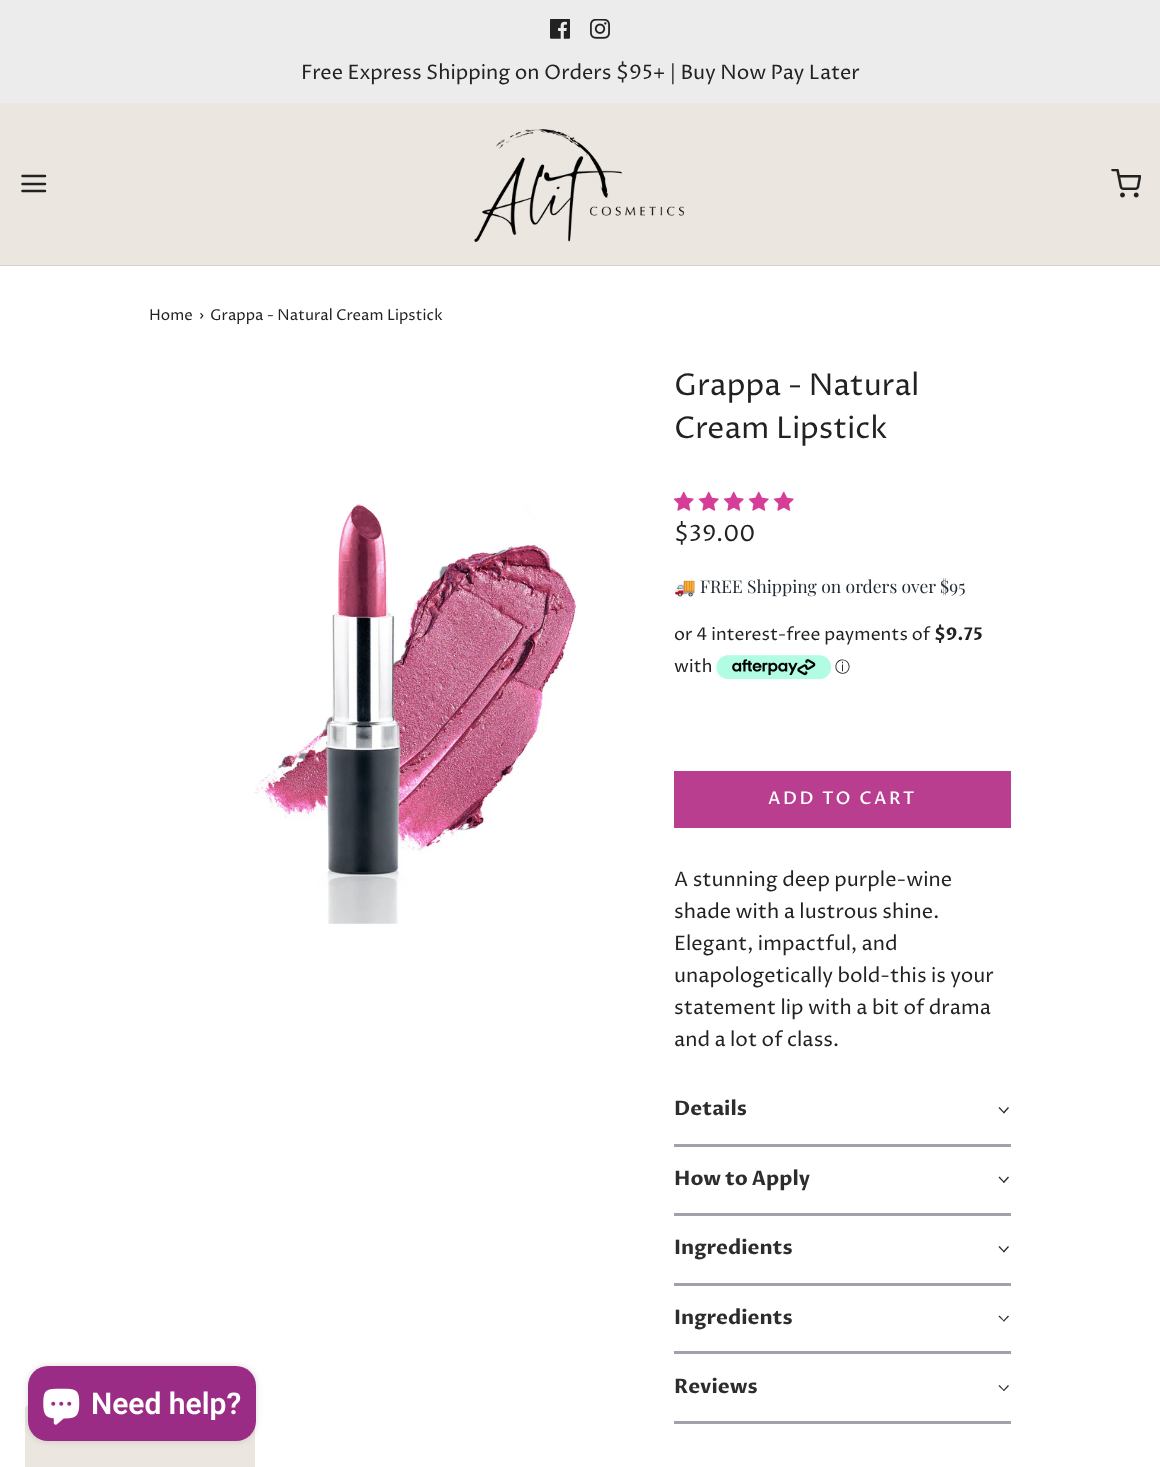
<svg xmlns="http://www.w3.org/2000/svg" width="1160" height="1467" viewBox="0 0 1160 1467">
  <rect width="100%" height="100%" fill="#fff"/>
  <path d="M0 0h1160v103H0z" fill="#edeced"/>
  <image x="550" y="19" width="20" height="20" href="img/1.png"/>
  <image x="590" y="19" width="20" height="20" href="img/2.png"/>
  <path d="M0 103h1160v162H0z" fill="#ebe6df"/>
  <path d="M0 265h1160v1H0z" fill="#d7d2cc"/>
  <path d="M22.5 184H45M22.5 176H45M22.5 191H45" fill="none" stroke="#222" stroke-width="2.5" stroke-linecap="round" stroke-linejoin="round"/>
  <image x="474" y="129" width="210" height="113" href="img/3.png"/>
  <image x="1111" y="169" width="30" height="29" href="img/4.png"/>
  <image x="253" y="504" width="324" height="420" href="img/5.png"/>
  <image x="673" y="491" width="21" height="20" href="img/6.png"/>
  <image x="698" y="491" width="21" height="20" href="img/6.png"/>
  <image x="723" y="491" width="21" height="20" href="img/6.png"/>
  <image x="748" y="491" width="21" height="20" href="img/6.png"/>
  <image x="773" y="491" width="21" height="20" href="img/6.png"/>
  <image x="716" y="655" width="115" height="25" href="img/7.png"/>
  <path d="M674 771h337v57H674z" fill="#b93e90"/>
  <path d="M674 1144h337v3H674z" fill="#a1a1aa"/>
  <path d="M1008 1107L1009 1108L1004 1113.5L1003 1112.5Z" fill="#2d2d2d"/>
  <path d="M999.5 1107L1004.5 1112.5L1004 1113.5L998.5 1108Z" fill="#2d2d2d"/>
  <path d="M674 1213h337v3H674z" fill="#a1a1aa"/>
  <path d="M1008 1176.5L1009 1177.5L1004 1183L1003 1182Z" fill="#2d2d2d"/>
  <path d="M999.5 1176.5L1004.5 1182L1004 1183L998.5 1177.5Z" fill="#2d2d2d"/>
  <path d="M674 1283h337v3H674z" fill="#a1a1aa"/>
  <path d="M1008 1246L1009 1247L1004 1252.5L1003 1251.5Z" fill="#2d2d2d"/>
  <path d="M999.5 1246L1004.5 1251.5L1004 1252.5L998.5 1247Z" fill="#2d2d2d"/>
  <path d="M674 1351h337v3H674z" fill="#a1a1aa"/>
  <path d="M1008 1315.5L1009 1316.5L1004 1321.5L1003 1321Z" fill="#2d2d2d"/>
  <path d="M999.5 1315.5L1004.5 1321L1004 1321.5L998.5 1316.5Z" fill="#2d2d2d"/>
  <path d="M674 1421h337v3H674z" fill="#a1a1aa"/>
  <path d="M1008 1385L1009 1386L1004 1391L1003 1390.5Z" fill="#2d2d2d"/>
  <path d="M999.5 1385L1004.5 1390.5L1004 1391L998.5 1386Z" fill="#2d2d2d"/>
  <path d="M30 1405H250C253 1405 255 1407 255 1410V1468H25V1410C25 1407 27 1405 30 1405Z" fill="#ebe6df"/>
  <rect x="28" y="1366" width="228" height="75" rx="20" fill="#00000026" filter="blur(3px)"/>
  <rect x="28" y="1366" width="228" height="75" rx="20" fill="#9a2c86"/>
  <image x="43" y="1388" width="37" height="37" href="img/8.png"/>
  <text x="301" y="79" font-family="Proza Libre" font-size="20" fill="#222">Free Express Shipping on Orders $95+ | Buy Now Pay Later</text>
  <g font-family="Proza Libre" font-size="15" fill="#222">
    <text x="149" y="320">Home</text>
    <text x="199" y="320">›</text>
    <text x="210" y="320">Grappa - Natural Cream Lipstick</text>
  </g>
  <g font-family="Proza Libre" font-size="30" fill="#222">
    <text x="674" y="395">Grappa - Natural</text>
    <text x="674" y="438">Cream Lipstick</text>
  </g>
  <text x="674" y="541" font-family="Proza Libre" font-size="22.5" fill="#222">$39.00</text>
  <text x="674" y="593" font-family="Noto Color Emoji" font-size="17.5" fill="#212b35">🚚</text>
  <text x="700" y="593" font-family="Playfair Display" font-size="17.5" fill="#212b35">FREE Shipping on orders over $95</text>
  <text x="674" y="640" font-family="Proza Libre" font-size="17.5" fill="#222">or 4 interest-free payments of</text>
  <text x="934" y="640" font-family="Proza Libre" font-size="17.5" font-weight="bold" fill="#222">$9.75</text>
  <text x="674" y="672" font-family="Proza Libre" font-size="17.5" fill="#222">with</text>
  <text x="835" y="672" font-family="WenQuanYi Zen Hei" font-size="15" font-weight="500" fill="#222">ⓘ</text>
  <text x="768" y="804" font-family="Proza Libre" font-size="17.5" font-weight="500" letter-spacing="2.5" fill="#fff">ADD TO CART</text>
  <g font-family="Proza Libre" font-size="20" fill="#222">
    <text x="674" y="886">A stunning deep purple-wine</text>
    <text x="674" y="918">shade with a lustrous shine.</text>
    <text x="674" y="950">Elegant, impactful, and</text>
    <text x="674" y="982">unapologetically bold-this is your</text>
    <text x="674" y="1014">statement lip with a bit of drama</text>
    <text x="674" y="1046">and a lot of class.</text>
  </g>
  <g font-family="Proza Libre" font-size="20" font-weight="bold" fill="#2d2d2d">
    <text x="674" y="1115">Details</text>
    <text x="674" y="1185">How to Apply</text>
    <text x="674" y="1254">Ingredients</text>
    <text x="674" y="1324">Ingredients</text>
    <text x="674" y="1393">Reviews</text>
  </g>
  <text x="91" y="1414" font-family="Roboto" font-size="30" font-weight="600" fill="#fff">Need help?</text>
</svg>
